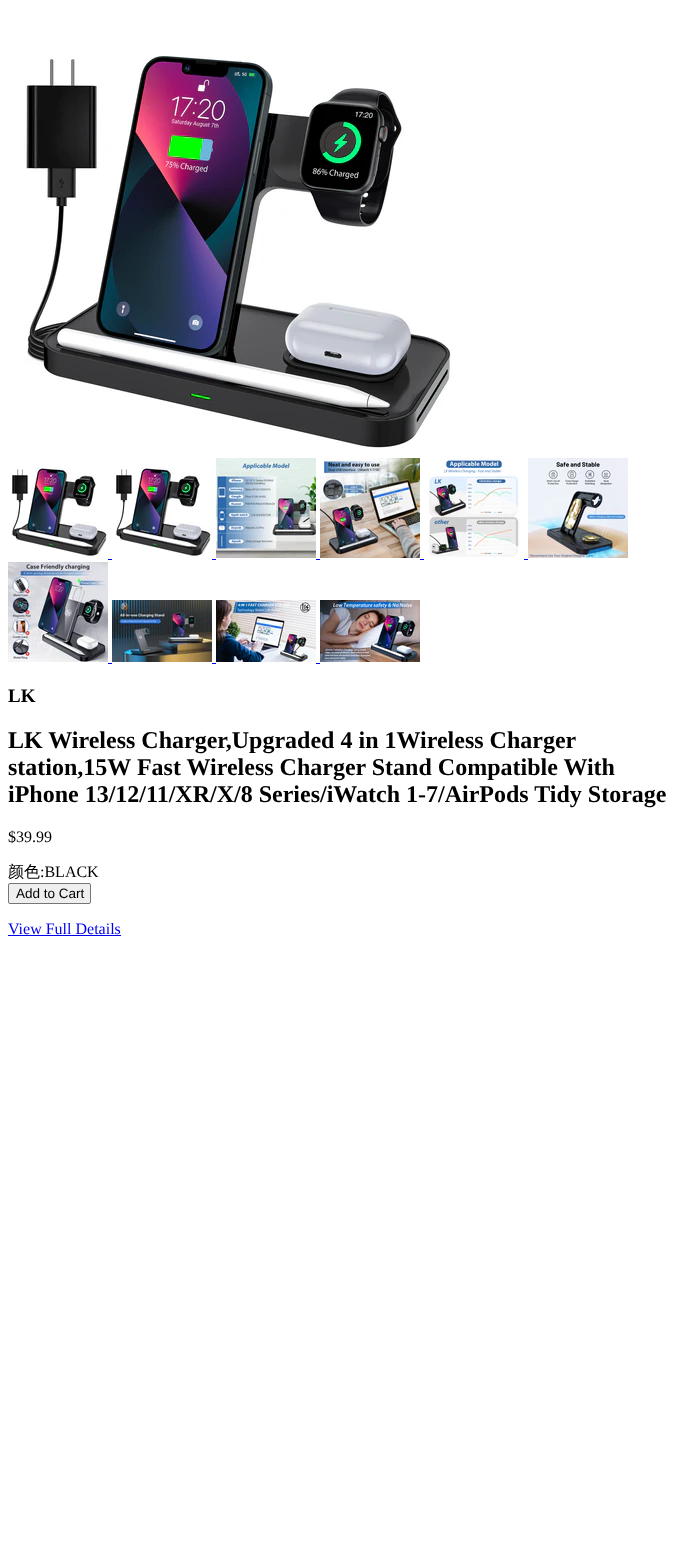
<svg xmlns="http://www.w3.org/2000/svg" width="696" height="1554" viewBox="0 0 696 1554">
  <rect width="100%" height="100%" fill="#fff"/>
  <image x="24" y="56" width="428" height="392" href="img/1.png"/>
  <image x="12" y="466" width="95" height="92" href="img/2.png"/>
  <image x="116" y="466" width="95" height="92" href="img/2.png"/>
  <image x="216" y="458" width="100" height="100" href="img/3.png"/>
  <image x="320" y="458" width="100" height="100" href="img/4.png"/>
  <image x="428" y="458" width="92" height="99" href="img/5.png"/>
  <image x="528" y="458" width="100" height="100" href="img/6.png"/>
  <path d="M108 559h4v1H108z" fill="#00e"/>
  <path d="M212 559h4v1H212z" fill="#00e"/>
  <path d="M316 559h4v1H316z" fill="#00e"/>
  <path d="M420 559h4v1H420z" fill="#00e"/>
  <path d="M524 559h4v1H524z" fill="#00e"/>
  <image x="8" y="562" width="100" height="100" href="img/7.png"/>
  <image x="112" y="600" width="100" height="62" href="img/8.png"/>
  <image x="216" y="600" width="100" height="62" href="img/9.png"/>
  <image x="320" y="600" width="100" height="62" href="img/10.png"/>
  <path d="M108 663h4v1H108z" fill="#00e"/>
  <path d="M212 663h4v1H212z" fill="#00e"/>
  <path d="M316 663h4v1H316z" fill="#00e"/>
  <rect x="8.5" y="883.5" width="82" height="20" rx="1.5" fill="#efefef" stroke="#767676"/>
  <path d="M8 935h113v1H8z" fill="#00e"/>
  <text x="8" y="702" font-family="Liberation Serif" font-size="19" font-weight="bold" fill="#000">LK</text>
  <g font-family="Liberation Serif" font-size="24" font-weight="bold" fill="#000">
    <text x="8" y="748">LK Wireless Charger,Upgraded 4 in 1Wireless Charger</text>
    <text x="8" y="775">station,15W Fast Wireless Charger Stand Compatible With</text>
    <text x="8" y="802">iPhone 13/12/11/XR/X/8 Series/iWatch 1-7/AirPods Tidy Storage</text>
  </g>
  <text x="8" y="842" font-family="Liberation Serif" font-size="16" fill="#000">$39.99</text>
  <text x="8" y="877" font-family="WenQuanYi Zen Hei" font-size="16" font-weight="500" fill="#000">颜色</text>
  <text x="40" y="877" font-family="Liberation Serif" font-size="16" fill="#000">:BLACK</text>
  <text x="16" y="898" font-family="Liberation Sans" font-size="13.5" fill="#000">Add to Cart</text>
  <text x="8" y="934" font-family="Liberation Serif" font-size="16" fill="#00e">View Full Details</text>
</svg>
